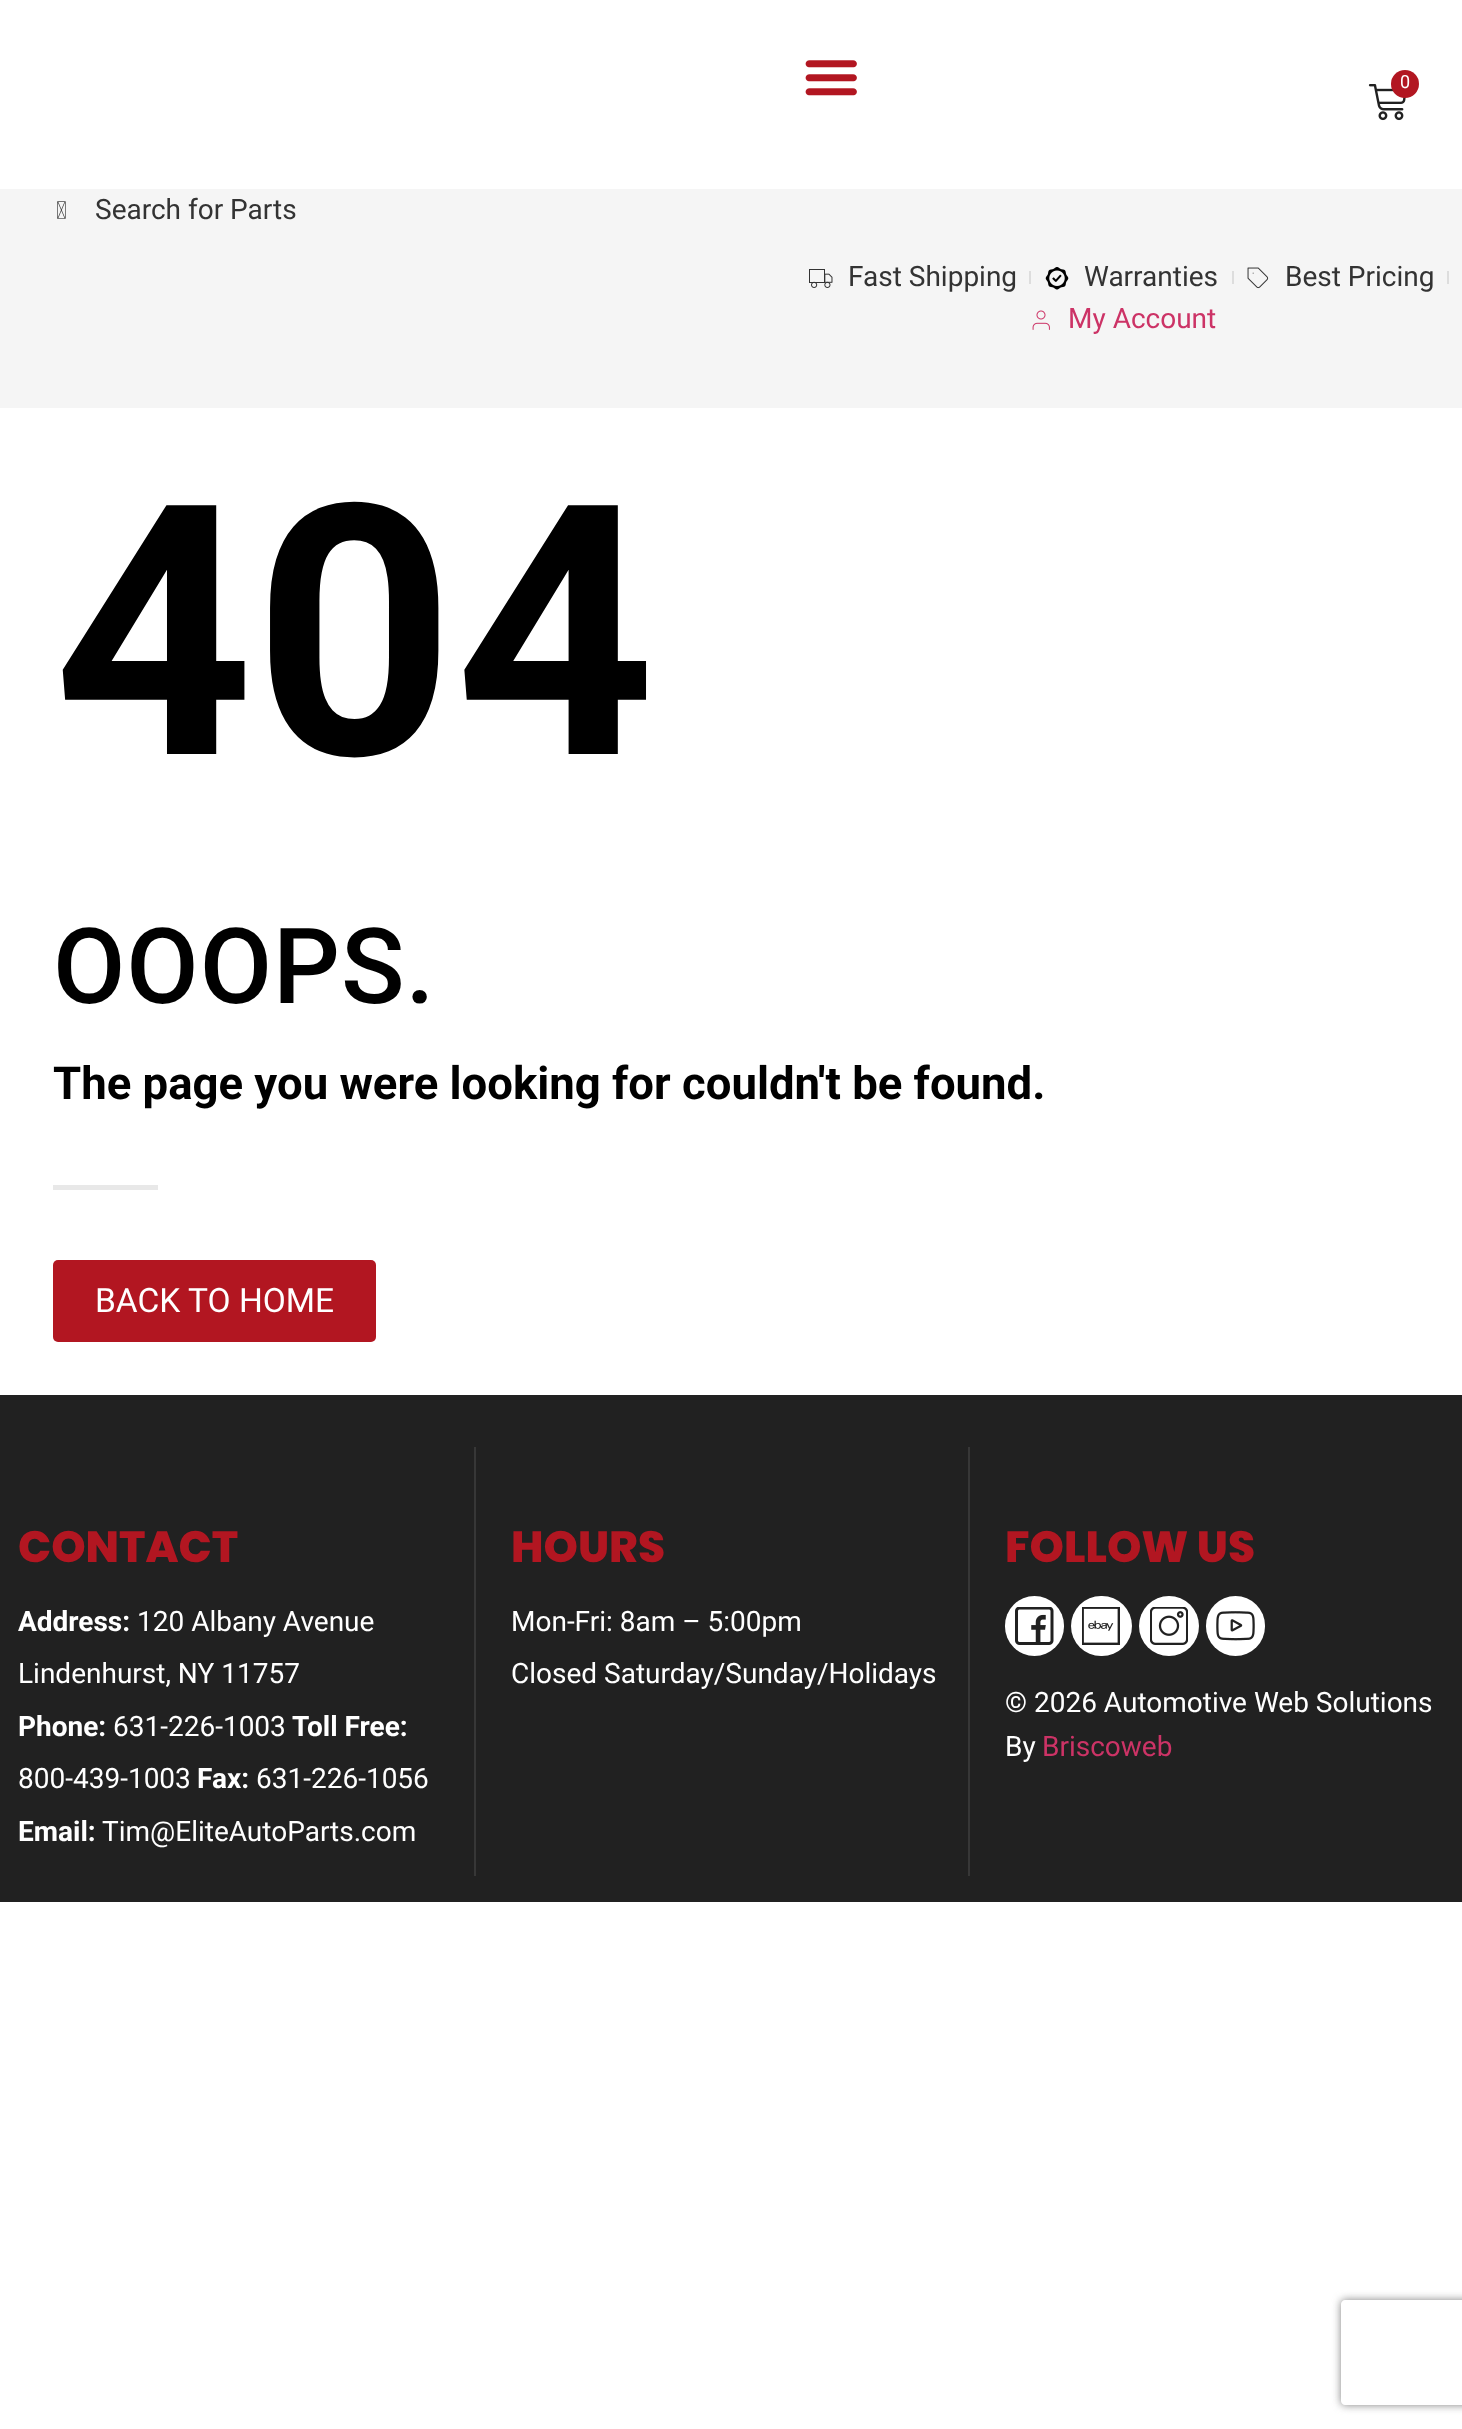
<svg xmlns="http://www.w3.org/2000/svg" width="1462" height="2429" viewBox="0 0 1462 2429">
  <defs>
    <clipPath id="clip1"><path d="M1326 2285H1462V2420H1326ZM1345 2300H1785C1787 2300 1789 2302 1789 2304V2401C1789 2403 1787 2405 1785 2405H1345C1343 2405 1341 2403 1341 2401V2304C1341 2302 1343 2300 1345 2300Z" clip-rule="evenodd"/></clipPath>
  </defs>
  <rect width="100%" height="100%" fill="#fff"/>
  <image x="805" y="60" width="52" height="36" href="img/1.png"/>
  <image x="1368" y="84" width="38" height="37" href="img/2.png"/>
  <circle cx="1405" cy="84" r="14" fill="#b21621"/>
  <path d="M0 189h1462v219H0z" fill="#f5f5f5"/>
  <image x="57" y="201" width="9" height="18" href="img/3.png"/>
  <image x="809" y="269" width="24" height="19" href="img/4.png"/>
  <path d="M1029 271h2v13H1029z" fill="#ddd"/>
  <image x="1045" y="267" width="24" height="23" href="img/5.png"/>
  <path d="M1232 271h2v13H1232z" fill="#ddd"/>
  <image x="1247" y="267" width="22" height="22" href="img/6.png"/>
  <path d="M1447 271h2v13H1447z" fill="#ddd"/>
  <image x="1032" y="310" width="18" height="20" href="img/7.png"/>
  <path d="M53 1185h105v5H53z" fill="#e8e8e8"/>
  <rect x="53" y="1260" width="323" height="82" rx="5" fill="#b21621"/>
  <path d="M0 1395h1462v507H0z" fill="#212121"/>
  <path d="M474 1447h2v429H474z" fill="#373737"/>
  <path d="M968 1447h2v429H968z" fill="#373737"/>
  <rect x="1005" y="1596" width="59" height="60" rx="29.5" fill="#fff"/>
  <image x="1015" y="1607" width="39" height="38" href="img/8.png"/>
  <rect x="1071" y="1596" width="61" height="60" rx="30" fill="#fff"/>
  <image x="1082" y="1607" width="38" height="38" href="img/9.png"/>
  <circle cx="1169" cy="1626" r="30" fill="#fff"/>
  <image x="1150" y="1607" width="38" height="38" href="img/10.png"/>
  <rect x="1206" y="1596" width="59" height="60" rx="29.5" fill="#fff"/>
  <image x="1216" y="1611" width="39" height="30" href="img/11.png"/>
  <g clip-path="url(#clip1)">
    <rect x="1341" y="2300" width="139" height="105" rx="4" fill="#808080" filter="blur(4.5px)"/>
  </g>
  <text x="1400" y="88" font-family="Roboto" font-size="18" fill="#fff">0</text>
  <g font-family="Roboto" font-size="28" fill="#333">
    <text x="95" y="219">Search for Parts</text>
    <text x="848" y="286">Fast Shipping</text>
    <text x="1084" y="286">Warranties</text>
    <text x="1285" y="286">Best Pricing</text>
  </g>
  <text x="1068" y="328" font-family="Roboto" font-size="28" fill="#c36">My Account</text>
  <text x="53" y="754" font-family="Roboto" font-size="350" font-weight="bold" fill="#000">404</text>
  <text x="53" y="1003" font-family="Roboto" font-size="105" font-weight="500" letter-spacing="1" fill="#000">OOOPS.</text>
  <text x="53" y="1099" font-family="Roboto" font-size="45.5" font-weight="bold" fill="#000">The page you were looking for couldn't be found.</text>
  <text x="95" y="1312" font-family="Roboto" font-size="33.5" fill="#fff">BACK TO HOME</text>
  <text x="18" y="1562" font-family="Poppins" font-size="43.75" font-weight="800" fill="#b21621">CONTACT</text>
  <text x="18" y="1631" font-family="Roboto" font-size="28" font-weight="bold" fill="#fff">Address:</text>
  <g font-family="Roboto" font-size="28" fill="#fff">
    <text x="137" y="1631">120 Albany Avenue</text>
    <text x="18" y="1683">Lindenhurst, NY 11757</text>
  </g>
  <text x="18" y="1736" font-family="Roboto" font-size="28" font-weight="bold" fill="#fff">Phone:</text>
  <text x="113" y="1736" font-family="Roboto" font-size="28" fill="#fff">631-226-1003</text>
  <text x="292" y="1736" font-family="Roboto" font-size="28" font-weight="bold" fill="#fff">Toll Free:</text>
  <text x="18" y="1788" font-family="Roboto" font-size="28" fill="#fff">800-439-1003</text>
  <text x="197" y="1788" font-family="Roboto" font-size="28" font-weight="bold" fill="#fff">Fax:</text>
  <text x="256" y="1788" font-family="Roboto" font-size="28" fill="#fff">631-226-1056</text>
  <text x="18" y="1841" font-family="Roboto" font-size="28" font-weight="bold" fill="#fff">Email:</text>
  <text x="102" y="1841" font-family="Roboto" font-size="28" fill="#fff">Tim@EliteAutoParts.com</text>
  <text x="511" y="1562" font-family="Poppins" font-size="43.75" font-weight="800" fill="#b21621">HOURS</text>
  <g font-family="Roboto" font-size="28" fill="#fff">
    <text x="511" y="1631">Mon-Fri: 8am – 5:00pm</text>
    <text x="511" y="1683">Closed Saturday/Sunday/Holidays</text>
  </g>
  <text x="1005" y="1562" font-family="Poppins" font-size="43.75" font-weight="800" fill="#b21621">FOLLOW US</text>
  <g font-family="Roboto" font-size="28" fill="#fff">
    <text x="1005" y="1712">© 2026 Automotive Web Solutions</text>
    <text x="1005" y="1756">By</text>
  </g>
  <text x="1042" y="1756" font-family="Roboto" font-size="28" fill="#c36">Briscoweb</text>
</svg>
